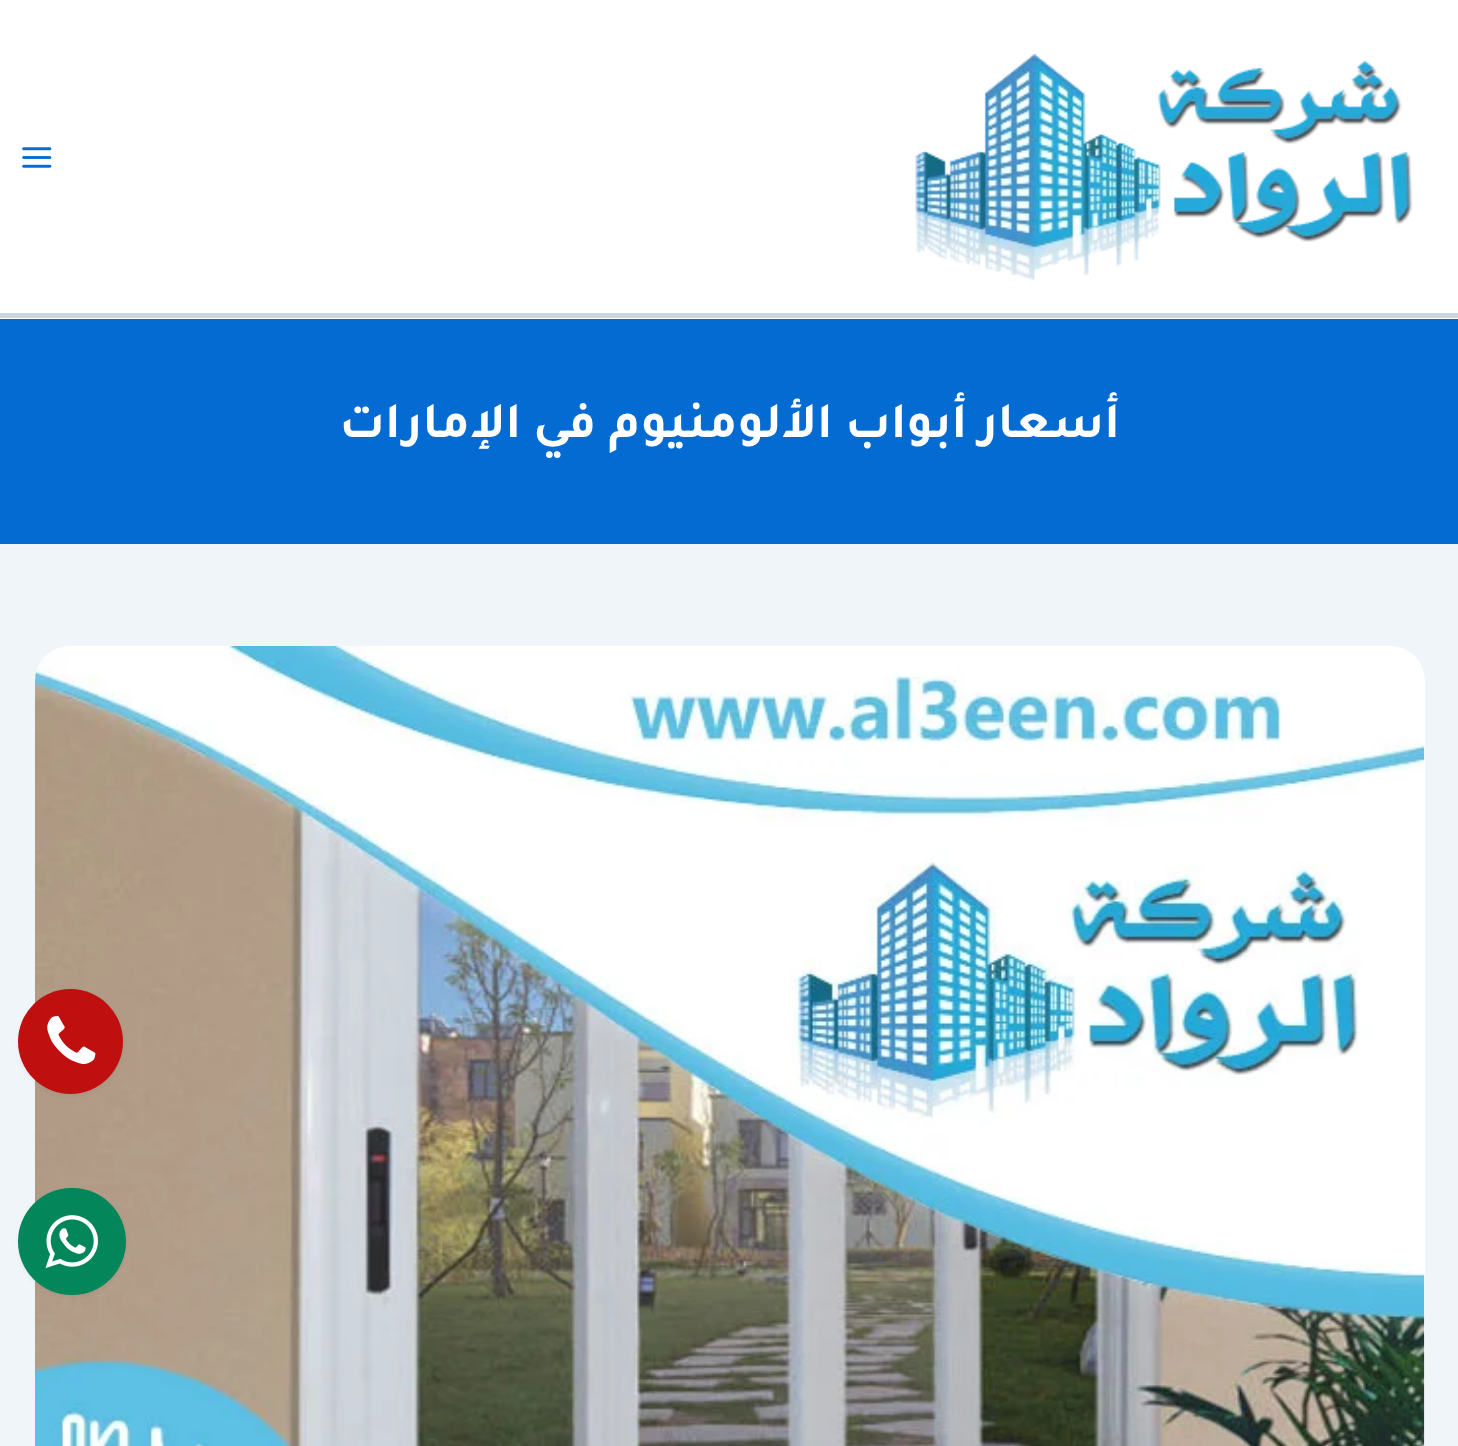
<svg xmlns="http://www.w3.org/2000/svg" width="1458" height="1446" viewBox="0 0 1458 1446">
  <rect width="100%" height="100%" fill="#f0f5fa"/>
  <path d="M0 0h1458v319H0z" fill="#fff"/>
  <path d="M0 313h1458v5H0z" fill="#d1d5db"/>
  <image x="915" y="53" width="498" height="228" href="img/1.png"/>
  <image x="22" y="147" width="30" height="21" href="img/2.png"/>
  <path d="M0 319h1458v225H0z" fill="#046bd2"/>
  <rect x="35" y="646" width="1390" height="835" rx="35" fill="#fff"/>
  <image x="35" y="646" width="1390" height="800" href="img/3.png"/>
  <rect x="18" y="991" width="105" height="105" rx="52.5" fill="#0000000d" filter="blur(2px)"/>
  <circle cx="70.5" cy="1041.5" r="52.5" fill="#bf0f0f"/>
  <image x="47" y="1015" width="49" height="49" href="img/4.png"/>
  <rect x="18" y="1190" width="108" height="107" rx="53.5" fill="#0000000d" filter="blur(2px)"/>
  <rect x="18" y="1188" width="108" height="107" rx="53.5" fill="#04865b"/>
  <image x="45" y="1215" width="53" height="53" href="img/5.png"/>
  <text x="1120" y="437" font-family="Tajawal" font-size="51.1" font-weight="bold" direction="rtl" fill="#fff">أسعار أبواب الألومنيوم في الإمارات</text>
</svg>
